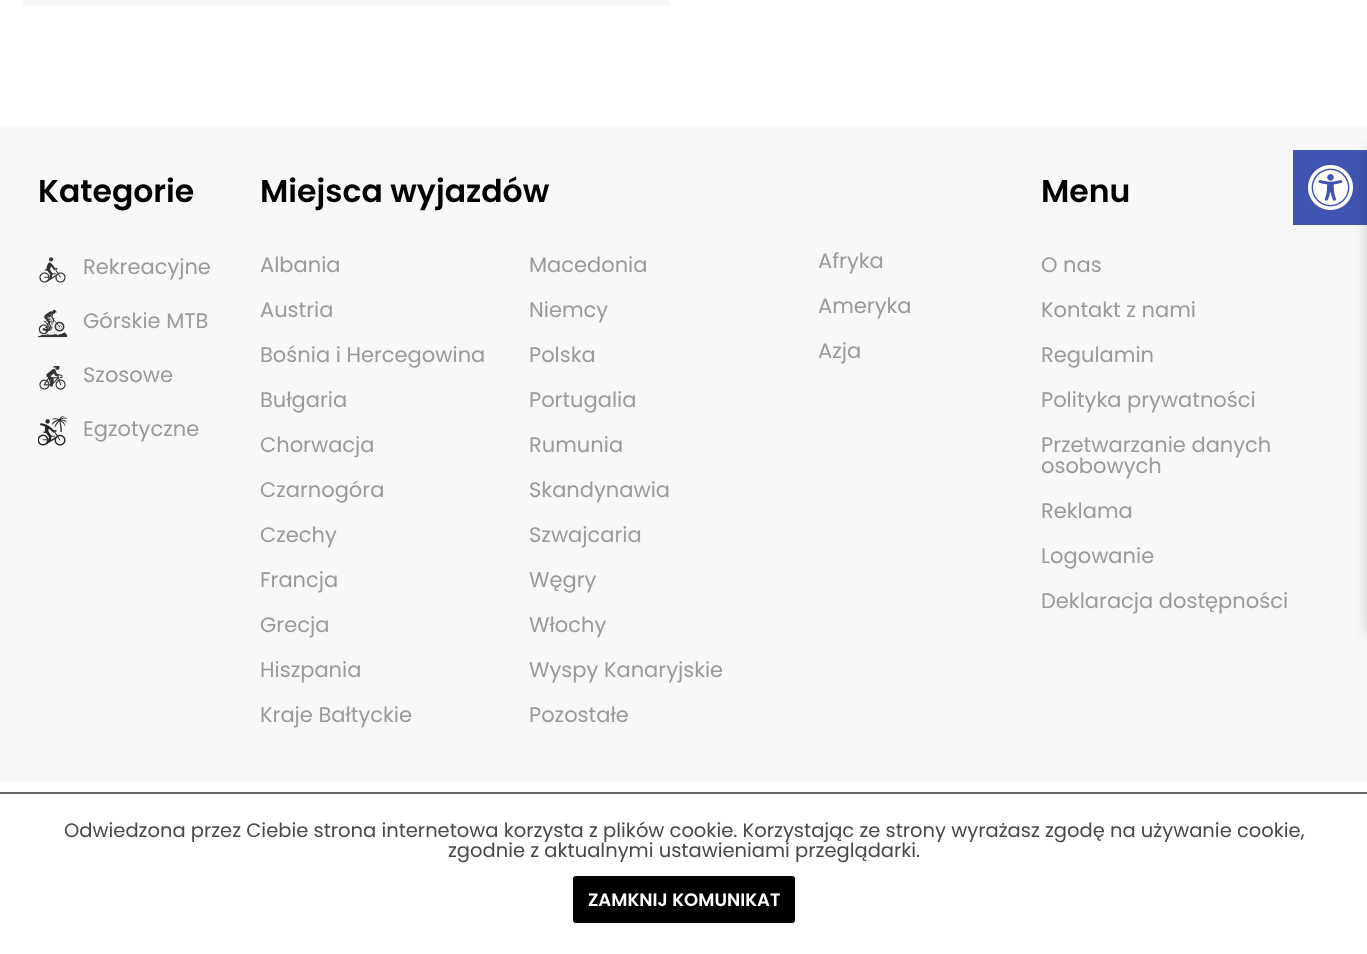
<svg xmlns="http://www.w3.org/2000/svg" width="1367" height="954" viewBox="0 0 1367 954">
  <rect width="100%" height="100%" fill="#fff"/>
  <path d="M23 0h646v6H23z" fill="#f8f8f8"/>
  <path d="M0 126h1367v656H0z" fill="#f8f8f8"/>
  <image x="39" y="257" width="27" height="26" href="img/1.png"/>
  <image x="38" y="309" width="30" height="29" href="img/2.png"/>
  <image x="39" y="366" width="27" height="24" href="img/3.png"/>
  <image x="38" y="416" width="29" height="30" href="img/4.png"/>
  <path d="M1293 150h74v75H1293z" fill="#4054b2"/>
  <path d="M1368 150h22v483H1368z" fill="#00000033" filter="blur(7.5px)"/>
  <image x="1308" y="165" width="45" height="45" href="img/5.png"/>
  <path d="M0 792h1367v2H0z" fill="#666"/>
  <rect x="573" y="876" width="222" height="47" rx="3" fill="#000"/>
  <text x="38" y="202" font-family="Poppins" font-size="31.5" font-weight="600" fill="#000">Kategorie</text>
  <g font-family="Poppins" font-size="21" fill="#9a9a9a">
    <text x="83" y="274">Rekreacyjne</text>
    <text x="83" y="328">Górskie MTB</text>
    <text x="83" y="382">Szosowe</text>
    <text x="83" y="436">Egzotyczne</text>
  </g>
  <text x="260" y="202" font-family="Poppins" font-size="31.5" font-weight="600" fill="#000">Miejsca wyjazdów</text>
  <g font-family="Poppins" font-size="21" fill="#9a9a9a">
    <text x="260" y="272">Albania</text>
    <text x="529" y="272">Macedonia</text>
    <text x="260" y="317">Austria</text>
    <text x="529" y="317">Niemcy</text>
    <text x="260" y="362">Bośnia i Hercegowina</text>
    <text x="529" y="362">Polska</text>
    <text x="260" y="407">Bułgaria</text>
    <text x="529" y="407">Portugalia</text>
    <text x="260" y="452">Chorwacja</text>
    <text x="529" y="452">Rumunia</text>
    <text x="260" y="497">Czarnogóra</text>
    <text x="529" y="497">Skandynawia</text>
    <text x="260" y="542">Czechy</text>
    <text x="529" y="542">Szwajcaria</text>
    <text x="260" y="587">Francja</text>
    <text x="529" y="587">Węgry</text>
    <text x="260" y="632">Grecja</text>
    <text x="529" y="632">Włochy</text>
    <text x="260" y="677">Hiszpania</text>
    <text x="529" y="677">Wyspy Kanaryjskie</text>
    <text x="260" y="722">Kraje Bałtyckie</text>
    <text x="529" y="722">Pozostałe</text>
    <text x="818" y="268">Afryka</text>
    <text x="818" y="313">Ameryka</text>
    <text x="818" y="358">Azja</text>
  </g>
  <text x="1041" y="202" font-family="Poppins" font-size="31.5" font-weight="600" fill="#000">Menu</text>
  <g font-family="Poppins" font-size="21" fill="#9a9a9a">
    <text x="1041" y="272">O nas</text>
    <text x="1041" y="317">Kontakt z nami</text>
    <text x="1041" y="362">Regulamin</text>
    <text x="1041" y="407">Polityka prywatności</text>
    <text x="1041" y="452">Przetwarzanie danych</text>
    <text x="1041" y="473">osobowych</text>
    <text x="1041" y="518">Reklama</text>
    <text x="1041" y="563">Logowanie</text>
    <text x="1041" y="608">Deklaracja dostępności</text>
  </g>
  <g font-family="Poppins" font-size="19.5" fill="#484848">
    <text x="64" y="837">Odwiedzona przez Ciebie strona internetowa korzysta z plików cookie. Korzystając ze strony wyrażasz zgodę na używanie cookie,</text>
    <text x="448" y="857">zgodnie z aktualnymi ustawieniami przeglądarki.</text>
  </g>
  <text x="588" y="906" font-family="Poppins" font-size="18" font-weight="600" fill="#fff">ZAMKNIJ KOMUNIKAT</text>
</svg>
